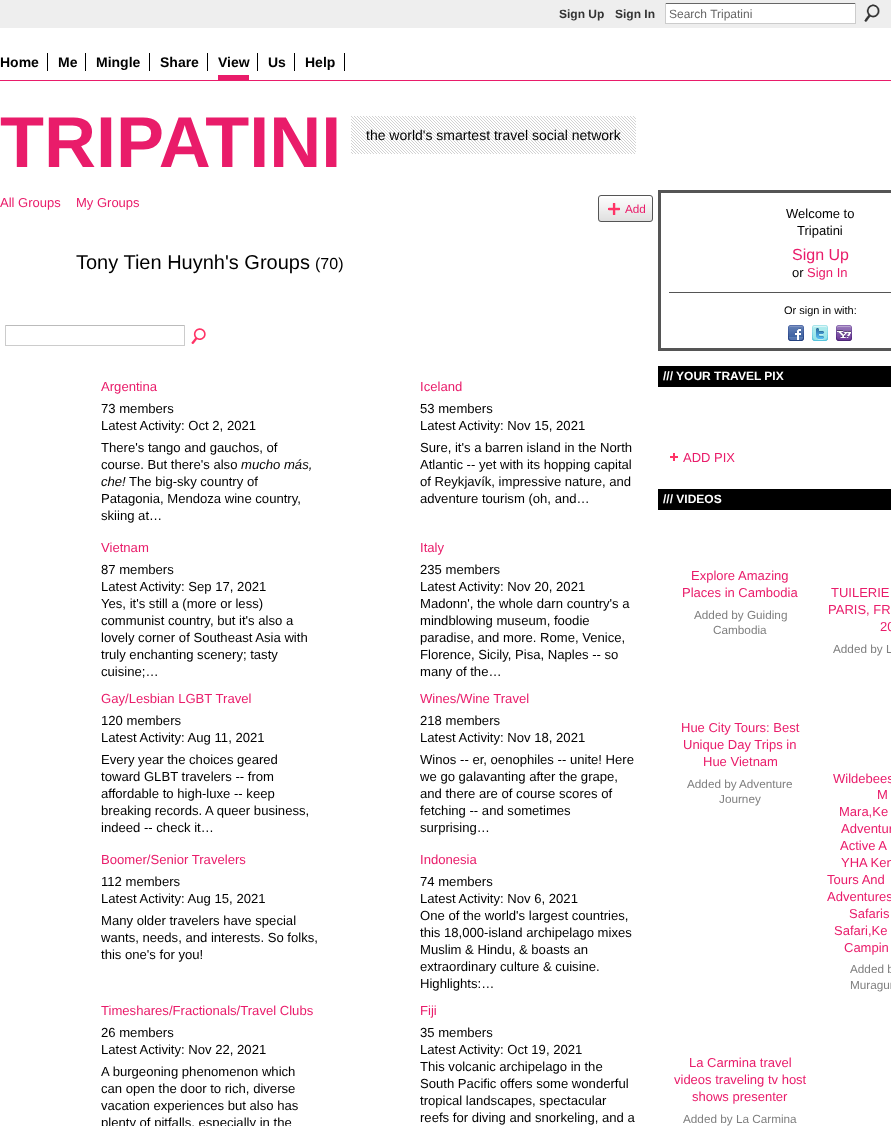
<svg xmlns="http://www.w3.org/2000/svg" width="891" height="1126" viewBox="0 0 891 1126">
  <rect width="100%" height="100%" fill="#fff"/>
  <path d="M0 0h891v28H0z" fill="#eee"/>
  <path d="M666 4h189v19H666z" fill="#fff"/>
  <path d="M665 3h191v1H665z" fill="#666"/>
  <path d="M855 3h1v21H855z" fill="#ccc"/>
  <path d="M665 23h191v1H665z" fill="#ccc"/>
  <path d="M665 3h1v21H665z" fill="#ccc"/>
  <image x="864" y="4" width="16" height="18" href="img/1.png"/>
  <path d="M0 80h891v1H0z" fill="#e91c6a"/>
  <path d="M47 53h1v18H47z" fill="#000"/>
  <path d="M85 53h1v18H85z" fill="#000"/>
  <path d="M149 53h1v18H149z" fill="#000"/>
  <path d="M207 53h1v18H207z" fill="#000"/>
  <path d="M257 53h1v18H257z" fill="#000"/>
  <path d="M218 75h31v5H218z" fill="#e91c6a"/>
  <path d="M294 53h1v18H294z" fill="#000"/>
  <path d="M344 53h1v18H344z" fill="#000"/>
  <image x="351" y="116" width="285" height="38" href="img/2.png"/>
  <image x="598" y="198" width="55" height="24" href="img/3.png"/>
  <rect x="598.5" y="195.5" width="54" height="26" rx="2.5" fill="none" stroke="#555"/>
  <image x="608" y="203" width="12" height="12" href="img/4.png"/>
  <path d="M5 325h180v1H5z" fill="#bbb"/>
  <path d="M184 325h1v21H184z" fill="#ccc"/>
  <path d="M5 345h180v1H5z" fill="#ccc"/>
  <path d="M5 325h1v21H5z" fill="#ccc"/>
  <image x="191" y="328" width="15" height="16" href="img/5.png"/>
  <path d="M659.5 191.5h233v158H659.5z" fill="none" stroke="#555" stroke-width="3"/>
  <path d="M669 292h222v1H669z" fill="#555"/>
  <image x="788" y="325" width="16" height="16" href="img/6.png"/>
  <image x="812" y="325" width="16" height="16" href="img/7.png"/>
  <image x="836" y="325" width="16" height="16" href="img/8.png"/>
  <path d="M658 366h233v21H658z" fill="#000"/>
  <image x="670" y="453" width="8" height="8" href="img/9.png"/>
  <path d="M658 489h233v21H658z" fill="#000"/>
  <g font-family="Liberation Sans" font-size="12" font-weight="bold" fill="#333">
    <text x="559" y="18">Sign Up</text>
    <text x="615" y="18">Sign In</text>
  </g>
  <text x="669" y="18" font-family="Liberation Sans" font-size="12" fill="#666">Search Tripatini</text>
  <g font-family="Liberation Sans" font-size="14" font-weight="bold" fill="#000">
    <text x="0" y="67">Home</text>
    <text x="58" y="67">Me</text>
    <text x="96" y="67">Mingle</text>
    <text x="160" y="67">Share</text>
    <text x="218" y="67">View</text>
    <text x="268" y="67">Us</text>
    <text x="305" y="67">Help</text>
  </g>
  <text x="0" y="167" font-family="Liberation Sans" font-size="72" font-weight="bold" fill="#e91c6a">TRIPATINI</text>
  <text x="366" y="140" font-family="Liberation Sans" font-size="14" fill="#000">the world's smartest travel social network</text>
  <g font-family="Liberation Sans" font-size="13" fill="#e91c6a">
    <text x="0" y="207">All Groups</text>
    <text x="76" y="207">My Groups</text>
  </g>
  <text x="625" y="213" font-family="Liberation Sans" font-size="11.75" fill="#e91c6a">Add</text>
  <text x="76" y="269" font-family="Liberation Sans" font-size="20" fill="#000">Tony Tien Huynh's Groups</text>
  <text x="315" y="269" font-family="Liberation Sans" font-size="16" fill="#000">(70)</text>
  <text x="101" y="391" font-family="Liberation Sans" font-size="13.1" fill="#e91c6a">Argentina</text>
  <g font-family="Liberation Sans" font-size="13.1" fill="#000">
    <text x="101" y="413">73 members</text>
    <text x="101" y="430">Latest Activity: Oct 2, 2021</text>
    <text x="101" y="452">There's tango and gauchos, of</text>
    <text x="101" y="469">course. But there's also</text>
  </g>
  <g font-family="Liberation Sans" font-size="13.1" font-style="italic" fill="#000">
    <text x="241" y="469">mucho más,</text>
    <text x="101" y="486">che!</text>
  </g>
  <g font-family="Liberation Sans" font-size="13.1" fill="#000">
    <text x="129" y="486">The big-sky country of</text>
    <text x="101" y="503">Patagonia, Mendoza wine country,</text>
    <text x="101" y="520">skiing at…</text>
  </g>
  <text x="420" y="391" font-family="Liberation Sans" font-size="13.1" fill="#e91c6a">Iceland</text>
  <g font-family="Liberation Sans" font-size="13.1" fill="#000">
    <text x="420" y="413">53 members</text>
    <text x="420" y="430">Latest Activity: Nov 15, 2021</text>
    <text x="420" y="452">Sure, it's a barren island in the North</text>
    <text x="420" y="469">Atlantic -- yet with its hopping capital</text>
    <text x="420" y="486">of Reykjavík, impressive nature, and</text>
    <text x="420" y="503">adventure tourism (oh, and…</text>
  </g>
  <text x="101" y="552" font-family="Liberation Sans" font-size="13.1" fill="#e91c6a">Vietnam</text>
  <g font-family="Liberation Sans" font-size="13.1" fill="#000">
    <text x="101" y="574">87 members</text>
    <text x="101" y="591">Latest Activity: Sep 17, 2021</text>
    <text x="101" y="608">Yes, it's still a (more or less)</text>
    <text x="101" y="625">communist country, but it's also a</text>
    <text x="101" y="642">lovely corner of Southeast Asia with</text>
    <text x="101" y="659">truly enchanting scenery; tasty</text>
    <text x="101" y="676">cuisine;…</text>
  </g>
  <text x="420" y="552" font-family="Liberation Sans" font-size="13.1" fill="#e91c6a">Italy</text>
  <g font-family="Liberation Sans" font-size="13.1" fill="#000">
    <text x="420" y="574">235 members</text>
    <text x="420" y="591">Latest Activity: Nov 20, 2021</text>
    <text x="420" y="608">Madonn', the whole darn country's a</text>
    <text x="420" y="625">mindblowing museum, foodie</text>
    <text x="420" y="642">paradise, and more. Rome, Venice,</text>
    <text x="420" y="659">Florence, Sicily, Pisa, Naples -- so</text>
    <text x="420" y="676">many of the…</text>
  </g>
  <text x="101" y="703" font-family="Liberation Sans" font-size="13.1" fill="#e91c6a">Gay/Lesbian LGBT Travel</text>
  <g font-family="Liberation Sans" font-size="13.1" fill="#000">
    <text x="101" y="725">120 members</text>
    <text x="101" y="742">Latest Activity: Aug 11, 2021</text>
    <text x="101" y="764">Every year the choices geared</text>
    <text x="101" y="781">toward GLBT travelers -- from</text>
    <text x="101" y="798">affordable to high-luxe -- keep</text>
    <text x="101" y="815">breaking records. A queer business,</text>
    <text x="101" y="832">indeed -- check it…</text>
  </g>
  <text x="420" y="703" font-family="Liberation Sans" font-size="13.1" fill="#e91c6a">Wines/Wine Travel</text>
  <g font-family="Liberation Sans" font-size="13.1" fill="#000">
    <text x="420" y="725">218 members</text>
    <text x="420" y="742">Latest Activity: Nov 18, 2021</text>
    <text x="420" y="764">Winos -- er, oenophiles -- unite! Here</text>
    <text x="420" y="781">we go galavanting after the grape,</text>
    <text x="420" y="798">and there are of course scores of</text>
    <text x="420" y="815">fetching -- and sometimes</text>
    <text x="420" y="832">surprising…</text>
  </g>
  <text x="101" y="864" font-family="Liberation Sans" font-size="13.1" fill="#e91c6a">Boomer/Senior Travelers</text>
  <g font-family="Liberation Sans" font-size="13.1" fill="#000">
    <text x="101" y="886">112 members</text>
    <text x="101" y="903">Latest Activity: Aug 15, 2021</text>
    <text x="101" y="925">Many older travelers have special</text>
    <text x="101" y="942">wants, needs, and interests. So folks,</text>
    <text x="101" y="959">this one's for you!</text>
  </g>
  <text x="420" y="864" font-family="Liberation Sans" font-size="13.1" fill="#e91c6a">Indonesia</text>
  <g font-family="Liberation Sans" font-size="13.1" fill="#000">
    <text x="420" y="886">74 members</text>
    <text x="420" y="903">Latest Activity: Nov 6, 2021</text>
    <text x="420" y="920">One of the world's largest countries,</text>
    <text x="420" y="937">this 18,000-island archipelago mixes</text>
    <text x="420" y="954">Muslim &amp; Hindu, &amp; boasts an</text>
    <text x="420" y="971">extraordinary culture &amp; cuisine.</text>
    <text x="420" y="988">Highlights:…</text>
  </g>
  <text x="101" y="1015" font-family="Liberation Sans" font-size="13.1" fill="#e91c6a">Timeshares/Fractionals/Travel Clubs</text>
  <g font-family="Liberation Sans" font-size="13.1" fill="#000">
    <text x="101" y="1037">26 members</text>
    <text x="101" y="1054">Latest Activity: Nov 22, 2021</text>
    <text x="101" y="1076">A burgeoning phenomenon which</text>
    <text x="101" y="1093">can open the door to rich, diverse</text>
    <text x="101" y="1110">vacation experiences but also has</text>
    <text x="101" y="1127">plenty of pitfalls, especially in the</text>
  </g>
  <text x="420" y="1015" font-family="Liberation Sans" font-size="13.1" fill="#e91c6a">Fiji</text>
  <g font-family="Liberation Sans" font-size="13.1" fill="#000">
    <text x="420" y="1037">35 members</text>
    <text x="420" y="1054">Latest Activity: Oct 19, 2021</text>
    <text x="420" y="1071">This volcanic archipelago in the</text>
    <text x="420" y="1088">South Pacific offers some wonderful</text>
    <text x="420" y="1105">tropical landscapes, spectacular</text>
    <text x="420" y="1122">reefs for diving and snorkeling, and a</text>
  </g>
  <g font-family="Liberation Sans" font-size="13" fill="#000">
    <text x="786" y="218">Welcome to</text>
    <text x="797" y="235">Tripatini</text>
  </g>
  <text x="792" y="260" font-family="Liberation Sans" font-size="16" fill="#e91c6a">Sign Up</text>
  <text x="792" y="277" font-family="Liberation Sans" font-size="13" fill="#000">or</text>
  <text x="807" y="277" font-family="Liberation Sans" font-size="13" fill="#e91c6a">Sign In</text>
  <text x="784" y="314" font-family="Liberation Sans" font-size="11" fill="#000">Or sign in with:</text>
  <text x="663" y="380" font-family="Liberation Sans" font-size="12" font-weight="bold" fill="#fff">/// YOUR TRAVEL PIX</text>
  <text x="683" y="462" font-family="Liberation Sans" font-size="13" fill="#e91c6a">ADD PIX</text>
  <text x="663" y="503" font-family="Liberation Sans" font-size="12" font-weight="bold" fill="#fff">/// VIDEOS</text>
  <g font-family="Liberation Sans" font-size="13" fill="#e91c6a">
    <text x="691" y="580">Explore Amazing</text>
    <text x="682" y="597">Places in Cambodia</text>
  </g>
  <g font-family="Liberation Sans" font-size="11.75" fill="#7f7f7f">
    <text x="694" y="619">Added by Guiding</text>
    <text x="713" y="634">Cambodia</text>
  </g>
  <g font-family="Liberation Sans" font-size="13" fill="#e91c6a">
    <text x="831" y="597">TUILERIE</text>
    <text x="828" y="614">PARIS, FR</text>
    <text x="880" y="631">20</text>
  </g>
  <text x="833" y="653" font-family="Liberation Sans" font-size="11.75" fill="#7f7f7f">Added by L</text>
  <g font-family="Liberation Sans" font-size="13" fill="#e91c6a">
    <text x="681" y="732">Hue City Tours: Best</text>
    <text x="683" y="749">Unique Day Trips in</text>
    <text x="703" y="766">Hue Vietnam</text>
  </g>
  <g font-family="Liberation Sans" font-size="11.75" fill="#7f7f7f">
    <text x="687" y="788">Added by</text>
    <text x="739" y="788">Adventure</text>
    <text x="719" y="803">Journey</text>
  </g>
  <g font-family="Liberation Sans" font-size="13" fill="#e91c6a">
    <text x="833" y="783">Wildebees</text>
    <text x="877" y="799">M</text>
    <text x="839" y="816">Mara,Ke</text>
    <text x="841" y="833">Adventur</text>
    <text x="840" y="850">Active A</text>
    <text x="841" y="867">YHA Ken</text>
    <text x="827" y="884">Tours And</text>
    <text x="827" y="901">Adventures</text>
    <text x="849" y="918">Safaris</text>
    <text x="834" y="935">Safari,Ke</text>
    <text x="844" y="952">Campin</text>
  </g>
  <g font-family="Liberation Sans" font-size="11.75" fill="#7f7f7f">
    <text x="850" y="973">Added b</text>
    <text x="850" y="989">Muragur</text>
  </g>
  <g font-family="Liberation Sans" font-size="13" fill="#e91c6a">
    <text x="689" y="1067">La Carmina travel</text>
    <text x="674" y="1084">videos traveling tv host</text>
    <text x="692" y="1101">shows presenter</text>
  </g>
  <text x="683" y="1123" font-family="Liberation Sans" font-size="11.75" fill="#7f7f7f">Added by La Carmina</text>
</svg>
